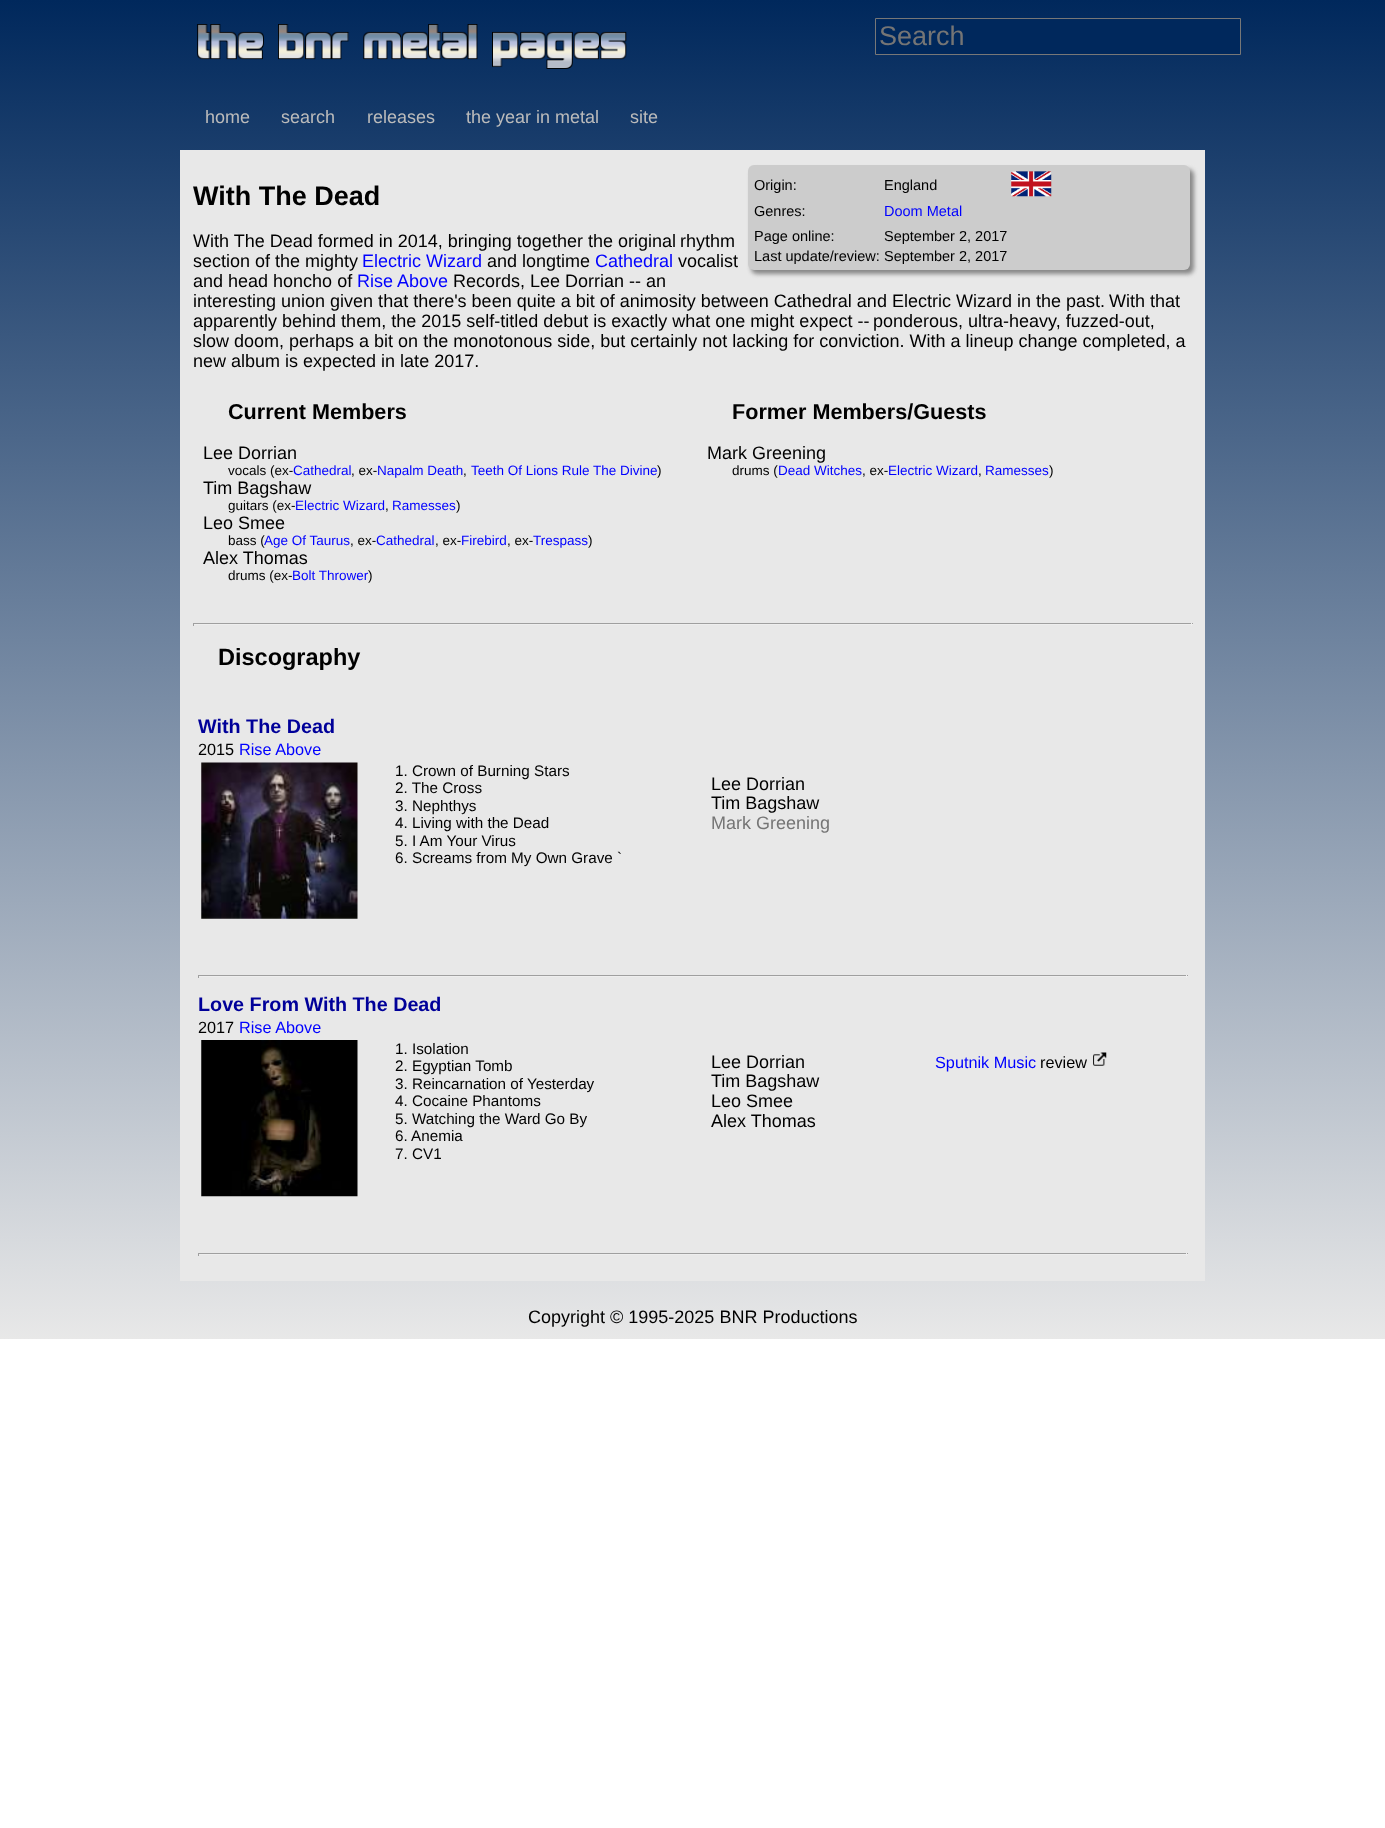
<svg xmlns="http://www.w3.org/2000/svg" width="1385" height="1828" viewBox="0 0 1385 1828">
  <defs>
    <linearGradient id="g1" gradientUnits="userSpaceOnUse" x1="693" y1="1339" x2="693" y2="0"><stop offset="0" stop-color="#e8e8e8"/><stop offset="1" stop-color="#00285c"/></linearGradient>
  </defs>
  <rect width="100%" height="100%" fill="#fff"/>
  <path d="M0 0h1385v1339H0z" fill="url(#g1)"/>
  <image x="197" y="24" width="430" height="45" href="img/1.png"/>
  <path d="M875.5 18.5h365v36H875.5z" fill="#00285c" stroke="#777"/>
  <path d="M180 150h1025v1131H180z" fill="#e8e8e8"/>
  <rect x="751" y="169" width="443" height="105" rx="6" fill="#888" filter="blur(2px)"/>
  <rect x="748" y="165" width="442" height="105" rx="6" fill="#ccc"/>
  <image x="1011" y="171" width="41" height="26" href="img/2.png"/>
  <path d="M193 623h1000v1H193z" fill="#9f9f9f"/>
  <path d="M1191 623h1v3H1191z" fill="#eee"/>
  <path d="M193 624h1000v1H193z" fill="#eee"/>
  <path d="M193 623h1v3H193z" fill="#9f9f9f"/>
  <image x="201" y="762" width="157" height="157" href="img/3.png"/>
  <path d="M198 975h990v1H198z" fill="#9f9f9f"/>
  <path d="M1186 975h1v3H1186z" fill="#eee"/>
  <path d="M198 976h990v1H198z" fill="#eee"/>
  <path d="M198 975h1v3H198z" fill="#9f9f9f"/>
  <image x="201" y="1040" width="157" height="157" href="img/4.png"/>
  <image x="1093" y="1052" width="14" height="14" href="img/5.png"/>
  <path d="M198 1253h990v1H198z" fill="#9f9f9f"/>
  <path d="M1186 1253h1v3H1186z" fill="#eee"/>
  <path d="M198 1254h990v1H198z" fill="#eee"/>
  <path d="M198 1253h1v3H198z" fill="#9f9f9f"/>
  <text x="879" y="45" font-family="Liberation Sans" font-size="27" fill="#757575">Search</text>
  <g font-family="Liberation Sans" font-size="18" fill="#bbb">
    <text x="205" y="123">home</text>
    <text x="281" y="123">search</text>
    <text x="367" y="123">releases</text>
    <text x="466" y="123">the year in metal</text>
    <text x="630" y="123">site</text>
  </g>
  <text x="193" y="205" font-family="Liberation Sans" font-size="27" font-weight="bold" fill="#000">With The Dead</text>
  <g font-family="Liberation Sans" font-size="14.5" fill="#000">
    <text x="754" y="190">Origin:</text>
    <text x="884" y="190">England</text>
    <text x="754" y="216">Genres:</text>
  </g>
  <text x="884" y="216" font-family="Liberation Sans" font-size="14.5" fill="#00f">Doom Metal</text>
  <g font-family="Liberation Sans" font-size="14.5" fill="#000">
    <text x="754" y="241">Page online:</text>
    <text x="884" y="241">September 2, 2017</text>
    <text x="754" y="261">Last update/review:</text>
    <text x="884" y="261">September 2, 2017</text>
  </g>
  <g font-family="Liberation Sans" font-size="18" fill="#000">
    <text x="193" y="247">With The Dead formed in 2014, bringing together the original</text>
    <text x="680" y="247">rhythm</text>
    <text x="193" y="267">section of the mighty</text>
  </g>
  <text x="362" y="267" font-family="Liberation Sans" font-size="18" fill="#00f">Electric Wizard</text>
  <text x="487" y="267" font-family="Liberation Sans" font-size="18" fill="#000">and longtime</text>
  <text x="595" y="267" font-family="Liberation Sans" font-size="18" fill="#00f">Cathedral</text>
  <g font-family="Liberation Sans" font-size="18" fill="#000">
    <text x="678" y="267">vocalist</text>
    <text x="193" y="287">and head honcho of</text>
  </g>
  <text x="357" y="287" font-family="Liberation Sans" font-size="18" fill="#00f">Rise Above</text>
  <g font-family="Liberation Sans" font-size="18" fill="#000">
    <text x="453" y="287">Records, Lee Dorrian -- an</text>
    <text x="193" y="307">interesting union given that there's been quite a bit of animosity between Cathedral and Electric Wizard in the past.</text>
    <text x="1109" y="307">With that</text>
    <text x="193" y="327">apparently behind them, the 2015 self-titled debut is exactly what one might expect --</text>
    <text x="873" y="327">ponderous, ultra-heavy, fuzzed-out,</text>
    <text x="193" y="347">slow doom, perhaps a bit on the monotonous side, but certainly not lacking for conviction. With a lineup change completed, a</text>
    <text x="193" y="367">new album is expected in late 2017.</text>
  </g>
  <text x="228" y="419" font-family="Liberation Sans" font-size="21.6" font-weight="bold" fill="#000">Current Members</text>
  <text x="203" y="459" font-family="Liberation Sans" font-size="18" fill="#000">Lee Dorrian</text>
  <text x="228" y="475" font-family="Liberation Sans" font-size="13.5" fill="#000">vocals (ex-</text>
  <text x="293" y="475" font-family="Liberation Sans" font-size="13.5" fill="#00f">Cathedral</text>
  <text x="351" y="475" font-family="Liberation Sans" font-size="13.5" fill="#000">, ex-</text>
  <text x="377" y="475" font-family="Liberation Sans" font-size="13.5" fill="#00f">Napalm Death</text>
  <text x="463" y="475" font-family="Liberation Sans" font-size="13.5" fill="#000">,</text>
  <text x="471" y="475" font-family="Liberation Sans" font-size="13.5" fill="#00f">Teeth Of Lions Rule The Divine</text>
  <text x="657" y="475" font-family="Liberation Sans" font-size="13.5" fill="#000">)</text>
  <text x="203" y="494" font-family="Liberation Sans" font-size="18" fill="#000">Tim Bagshaw</text>
  <text x="228" y="510" font-family="Liberation Sans" font-size="13.5" fill="#000">guitars (ex-</text>
  <text x="295" y="510" font-family="Liberation Sans" font-size="13.5" fill="#00f">Electric Wizard</text>
  <text x="385" y="510" font-family="Liberation Sans" font-size="13.5" fill="#000">,</text>
  <text x="392" y="510" font-family="Liberation Sans" font-size="13.5" fill="#00f">Ramesses</text>
  <text x="456" y="510" font-family="Liberation Sans" font-size="13.5" fill="#000">)</text>
  <text x="203" y="529" font-family="Liberation Sans" font-size="18" fill="#000">Leo Smee</text>
  <text x="228" y="545" font-family="Liberation Sans" font-size="13.5" fill="#000">bass (</text>
  <text x="264" y="545" font-family="Liberation Sans" font-size="13.5" fill="#00f">Age Of Taurus</text>
  <text x="350" y="545" font-family="Liberation Sans" font-size="13.5" fill="#000">, ex-</text>
  <text x="376" y="545" font-family="Liberation Sans" font-size="13.5" fill="#00f">Cathedral</text>
  <text x="435" y="545" font-family="Liberation Sans" font-size="13.5" fill="#000">, ex-</text>
  <text x="461" y="545" font-family="Liberation Sans" font-size="13.5" fill="#00f">Firebird</text>
  <text x="507" y="545" font-family="Liberation Sans" font-size="13.5" fill="#000">, ex-</text>
  <text x="533" y="545" font-family="Liberation Sans" font-size="13.5" fill="#00f">Trespass</text>
  <text x="588" y="545" font-family="Liberation Sans" font-size="13.5" fill="#000">)</text>
  <text x="203" y="564" font-family="Liberation Sans" font-size="18" fill="#000">Alex Thomas</text>
  <text x="228" y="580" font-family="Liberation Sans" font-size="13.5" fill="#000">drums (ex-</text>
  <text x="292" y="580" font-family="Liberation Sans" font-size="13.5" fill="#00f">Bolt Thrower</text>
  <text x="368" y="580" font-family="Liberation Sans" font-size="13.5" fill="#000">)</text>
  <text x="732" y="419" font-family="Liberation Sans" font-size="21.6" font-weight="bold" fill="#000">Former Members/Guests</text>
  <text x="707" y="459" font-family="Liberation Sans" font-size="18" fill="#000">Mark Greening</text>
  <text x="732" y="475" font-family="Liberation Sans" font-size="13.5" fill="#000">drums (</text>
  <text x="778" y="475" font-family="Liberation Sans" font-size="13.5" fill="#00f">Dead Witches</text>
  <text x="862" y="475" font-family="Liberation Sans" font-size="13.5" fill="#000">, ex-</text>
  <text x="888" y="475" font-family="Liberation Sans" font-size="13.5" fill="#00f">Electric Wizard</text>
  <text x="978" y="475" font-family="Liberation Sans" font-size="13.5" fill="#000">,</text>
  <text x="985" y="475" font-family="Liberation Sans" font-size="13.5" fill="#00f">Ramesses</text>
  <text x="1049" y="475" font-family="Liberation Sans" font-size="13.5" fill="#000">)</text>
  <text x="218" y="665" font-family="Liberation Sans" font-size="23.5" font-weight="bold" fill="#000">Discography</text>
  <text x="198" y="733" font-family="Liberation Sans" font-size="19.75" font-weight="bold" fill="#009">With The Dead</text>
  <text x="198" y="755" font-family="Liberation Sans" font-size="16.25" fill="#000">2015</text>
  <text x="239" y="755" font-family="Liberation Sans" font-size="16.25" fill="#00f">Rise Above</text>
  <g font-family="Liberation Sans" font-size="15.25" fill="#000">
    <text x="395" y="776">1. Crown of Burning Stars</text>
    <text x="395" y="793">2. The Cross</text>
    <text x="395" y="811">3. Nephthys</text>
    <text x="395" y="828">4. Living with the Dead</text>
    <text x="395" y="846">5. I Am Your Virus</text>
    <text x="395" y="863">6. Screams from My Own Grave `</text>
  </g>
  <g font-family="Liberation Sans" font-size="18" fill="#000">
    <text x="711" y="790">Lee Dorrian</text>
    <text x="711" y="809">Tim Bagshaw</text>
  </g>
  <text x="711" y="829" font-family="Liberation Sans" font-size="18" fill="#757575">Mark Greening</text>
  <text x="198" y="1011" font-family="Liberation Sans" font-size="19.75" font-weight="bold" fill="#009">Love From With The Dead</text>
  <text x="198" y="1033" font-family="Liberation Sans" font-size="16.25" fill="#000">2017</text>
  <text x="239" y="1033" font-family="Liberation Sans" font-size="16.25" fill="#00f">Rise Above</text>
  <g font-family="Liberation Sans" font-size="15.25" fill="#000">
    <text x="395" y="1054">1. Isolation</text>
    <text x="395" y="1071">2. Egyptian Tomb</text>
    <text x="395" y="1089">3. Reincarnation of Yesterday</text>
    <text x="395" y="1106">4. Cocaine Phantoms</text>
    <text x="395" y="1124">5. Watching the Ward Go By</text>
    <text x="395" y="1141">6. Anemia</text>
    <text x="395" y="1159">7. CV1</text>
  </g>
  <g font-family="Liberation Sans" font-size="18" fill="#000">
    <text x="711" y="1068">Lee Dorrian</text>
    <text x="711" y="1087">Tim Bagshaw</text>
    <text x="711" y="1107">Leo Smee</text>
    <text x="711" y="1127">Alex Thomas</text>
  </g>
  <text x="935" y="1068" font-family="Liberation Sans" font-size="16.25" fill="#00f">Sputnik Music</text>
  <text x="1040" y="1068" font-family="Liberation Sans" font-size="16.25" fill="#000">review</text>
  <text x="528" y="1323" font-family="Liberation Sans" font-size="18" fill="#000">Copyright © 1995-2025 BNR Productions</text>
</svg>
